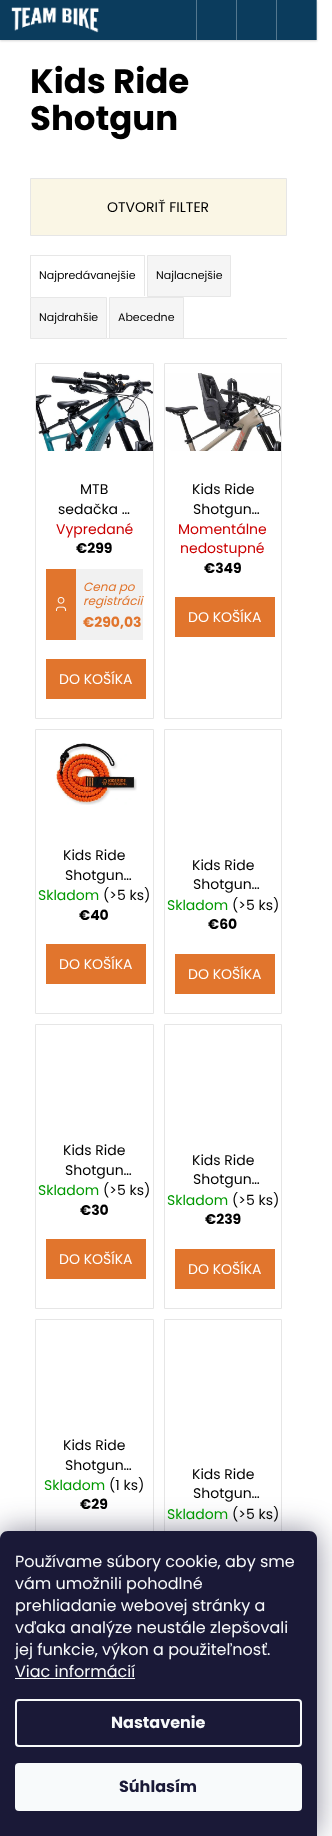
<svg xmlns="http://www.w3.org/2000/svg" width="332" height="1836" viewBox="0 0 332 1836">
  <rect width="100%" height="100%" fill="#fff"/>
  <path d="M0 1h317v40H0z" fill="#00000029" filter="blur(1px)"/>
  <path d="M0 0h316v40H0z" fill="#0b3c5d"/>
  <image x="11" y="7" width="88" height="26" href="img/1.png"/>
  <path d="M316 0h1v40H316z" fill="#54778e"/>
  <path d="M196 0h1v40H196z" fill="#54778e"/>
  <path d="M236 0h1v40H236z" fill="#54778e"/>
  <path d="M276 0h1v40H276z" fill="#54778e"/>
  <path d="M30.5 178.5h256v57H30.5z" fill="#faf6e5" stroke="#e6e6e6"/>
  <path d="M107 338h180v1H107z" fill="#e7e7e7"/>
  <path d="M30 255h115v1H30z" fill="#e7e7e7"/>
  <path d="M144 255h1v42H144z" fill="#e7e7e7"/>
  <path d="M144 296h1v1H144z" fill="#fff"/>
  <path d="M30 255h1v42H30z" fill="#e7e7e7"/>
  <path d="M147.5 255.5h83v41H147.5z" fill="#f5f5f5" stroke="#e7e7e7"/>
  <path d="M30.5 297.5h76v41H30.5z" fill="#f5f5f5" stroke="#e7e7e7"/>
  <path d="M109.5 297.5h74v41H109.5z" fill="#f5f5f5" stroke="#e7e7e7"/>
  <path d="M35.5 363.5h118v355H35.5z" fill="none" stroke="#e6e6e6"/>
  <image x="36" y="371" width="117" height="80" href="img/2.png"/>
  <path d="M76 569h67v71H76z" fill="#f1f1f1"/>
  <path d="M46 569h30v71H46z" fill="#e1752d"/>
  <image x="56" y="597" width="11" height="14" href="img/3.png"/>
  <path d="M46 659h100v40H46z" fill="#e1752d"/>
  <path d="M164.5 363.5h117v355H164.5z" fill="none" stroke="#e6e6e6"/>
  <image x="165" y="373" width="116" height="78" href="img/4.png"/>
  <path d="M175 597h100v40H175z" fill="#e1752d"/>
  <path d="M35.5 729.5h118v284H35.5z" fill="none" stroke="#e6e6e6"/>
  <image x="55" y="743" width="82" height="62" href="img/5.png"/>
  <path d="M46 944h100v40H46z" fill="#e1752d"/>
  <path d="M164.5 729.5h117v284H164.5z" fill="none" stroke="#e6e6e6"/>
  <path d="M175 954h100v40H175z" fill="#e1752d"/>
  <path d="M35.5 1024.5h118v284H35.5z" fill="none" stroke="#e6e6e6"/>
  <path d="M46 1239h100v40H46z" fill="#e1752d"/>
  <path d="M164.5 1024.5h117v284H164.5z" fill="none" stroke="#e6e6e6"/>
  <path d="M175 1249h100v40H175z" fill="#e1752d"/>
  <path d="M35.5 1319.5h118v303H35.5z" fill="none" stroke="#e6e6e6"/>
  <path d="M164.5 1319.5h117v303H164.5z" fill="none" stroke="#e6e6e6"/>
  <rect y="1531" width="317" height="305" rx="8" fill="#1b193980" filter="blur(15px)"/>
  <path d="M8 1531H309C313.5 1531 317 1534.5 317 1539V1836H0V1539C0 1534.5 3.5 1531 8 1531Z" fill="#1a1937"/>
  <path d="M15 1678h120v1H15z" fill="#f8fafb"/>
  <rect x="16" y="1700" width="285" height="46" rx="3" fill="none" stroke="#f8fafb" stroke-width="2"/>
  <rect x="15" y="1763" width="287" height="48" rx="4" fill="#f8fafb"/>
  <g font-family="Poppins" font-size="34" font-weight="bold" fill="#000">
    <text x="30" y="93">Kids Ride</text>
    <text x="30" y="130">Shotgun</text>
  </g>
  <text x="107" y="212" font-family="Poppins" font-size="14" fill="#000">OTVORIŤ FILTER</text>
  <g font-family="Poppins" font-size="11" fill="#000">
    <text x="39" y="279">Najpredávanejšie</text>
    <text x="156" y="279">Najlacnejšie</text>
    <text x="39" y="321">Najdrahšie</text>
    <text x="118" y="321">Abecedne</text>
  </g>
  <g font-family="Poppins" font-size="14" fill="#000">
    <text x="80" y="494">MTB</text>
    <text x="58" y="514">sedačka …</text>
  </g>
  <text x="56" y="534" font-family="Poppins" font-size="14" fill="#cb0000">Vypredané</text>
  <text x="76" y="553" font-family="Poppins" font-size="14" font-weight="bold" fill="#000">€299</text>
  <g font-family="Poppins" font-size="12" font-style="italic" fill="#e1752d">
    <text x="83" y="591">Cena po</text>
    <text x="83" y="605">registrácii</text>
  </g>
  <text x="83" y="627" font-family="Poppins" font-size="14" font-weight="bold" fill="#e1752d">€290,03</text>
  <text x="59" y="684" font-family="Poppins" font-size="14" fill="#fff">DO KOŠÍKA</text>
  <g font-family="Poppins" font-size="14" fill="#000">
    <text x="192" y="494">Kids Ride</text>
    <text x="193" y="514">Shotgun…</text>
  </g>
  <g font-family="Poppins" font-size="14" fill="#cb0000">
    <text x="178" y="534">Momentálne</text>
    <text x="180" y="553">nedostupné</text>
  </g>
  <text x="204" y="573" font-family="Poppins" font-size="14" font-weight="bold" fill="#000">€349</text>
  <text x="188" y="622" font-family="Poppins" font-size="14" fill="#fff">DO KOŠÍKA</text>
  <g font-family="Poppins" font-size="14" fill="#000">
    <text x="63" y="860">Kids Ride</text>
    <text x="65" y="880">Shotgun…</text>
  </g>
  <text x="38" y="900" font-family="Poppins" font-size="14" fill="#009901">Skladom</text>
  <text x="103" y="900" font-family="Poppins" font-size="14" fill="#000">(&gt;5 ks)</text>
  <text x="79" y="920" font-family="Poppins" font-size="14" font-weight="bold" fill="#000">€40</text>
  <text x="59" y="969" font-family="Poppins" font-size="14" fill="#fff">DO KOŠÍKA</text>
  <g font-family="Poppins" font-size="14" fill="#000">
    <text x="192" y="870">Kids Ride</text>
    <text x="193" y="889">Shotgun…</text>
  </g>
  <text x="167" y="910" font-family="Poppins" font-size="14" fill="#009901">Skladom</text>
  <text x="232" y="910" font-family="Poppins" font-size="14" fill="#000">(&gt;5 ks)</text>
  <text x="208" y="929" font-family="Poppins" font-size="14" font-weight="bold" fill="#000">€60</text>
  <text x="188" y="979" font-family="Poppins" font-size="14" fill="#fff">DO KOŠÍKA</text>
  <g font-family="Poppins" font-size="14" fill="#000">
    <text x="63" y="1155">Kids Ride</text>
    <text x="65" y="1175">Shotgun…</text>
  </g>
  <text x="38" y="1195" font-family="Poppins" font-size="14" fill="#009901">Skladom</text>
  <text x="103" y="1195" font-family="Poppins" font-size="14" fill="#000">(&gt;5 ks)</text>
  <text x="80" y="1215" font-family="Poppins" font-size="14" font-weight="bold" fill="#000">€30</text>
  <text x="59" y="1264" font-family="Poppins" font-size="14" fill="#fff">DO KOŠÍKA</text>
  <g font-family="Poppins" font-size="14" fill="#000">
    <text x="192" y="1165">Kids Ride</text>
    <text x="193" y="1184">Shotgun…</text>
  </g>
  <text x="167" y="1205" font-family="Poppins" font-size="14" fill="#009901">Skladom</text>
  <text x="232" y="1205" font-family="Poppins" font-size="14" fill="#000">(&gt;5 ks)</text>
  <text x="205" y="1224" font-family="Poppins" font-size="14" font-weight="bold" fill="#000">€239</text>
  <text x="188" y="1274" font-family="Poppins" font-size="14" fill="#fff">DO KOŠÍKA</text>
  <g font-family="Poppins" font-size="14" fill="#000">
    <text x="63" y="1450">Kids Ride</text>
    <text x="65" y="1470">Shotgun…</text>
  </g>
  <text x="44" y="1490" font-family="Poppins" font-size="14" fill="#009901">Skladom</text>
  <text x="109" y="1490" font-family="Poppins" font-size="14" fill="#000">(1 ks)</text>
  <text x="80" y="1509" font-family="Poppins" font-size="14" font-weight="bold" fill="#000">€29</text>
  <g font-family="Poppins" font-size="14" fill="#000">
    <text x="192" y="1479">Kids Ride</text>
    <text x="193" y="1498">Shotgun…</text>
  </g>
  <text x="167" y="1519" font-family="Poppins" font-size="14" fill="#009901">Skladom</text>
  <text x="232" y="1519" font-family="Poppins" font-size="14" fill="#000">(&gt;5 ks)</text>
  <g font-family="Poppins" font-size="16" fill="#f8fafb">
    <text x="15" y="1567">Používame súbory cookie, aby sme</text>
    <text x="15" y="1589">vám umožnili pohodlné</text>
    <text x="15" y="1611">prehliadanie webovej stránky a</text>
    <text x="15" y="1633">vďaka analýze neustále zlepšovali</text>
    <text x="15" y="1655">jej funkcie, výkon a použiteľnosť.</text>
    <text x="15" y="1677">Viac informácií</text>
  </g>
  <text x="111" y="1728" font-family="Poppins" font-size="16" font-weight="bold" fill="#f8fafb">Nastavenie</text>
  <text x="119" y="1792" font-family="Poppins" font-size="16" font-weight="bold" fill="#1a1937">Súhlasím</text>
</svg>
